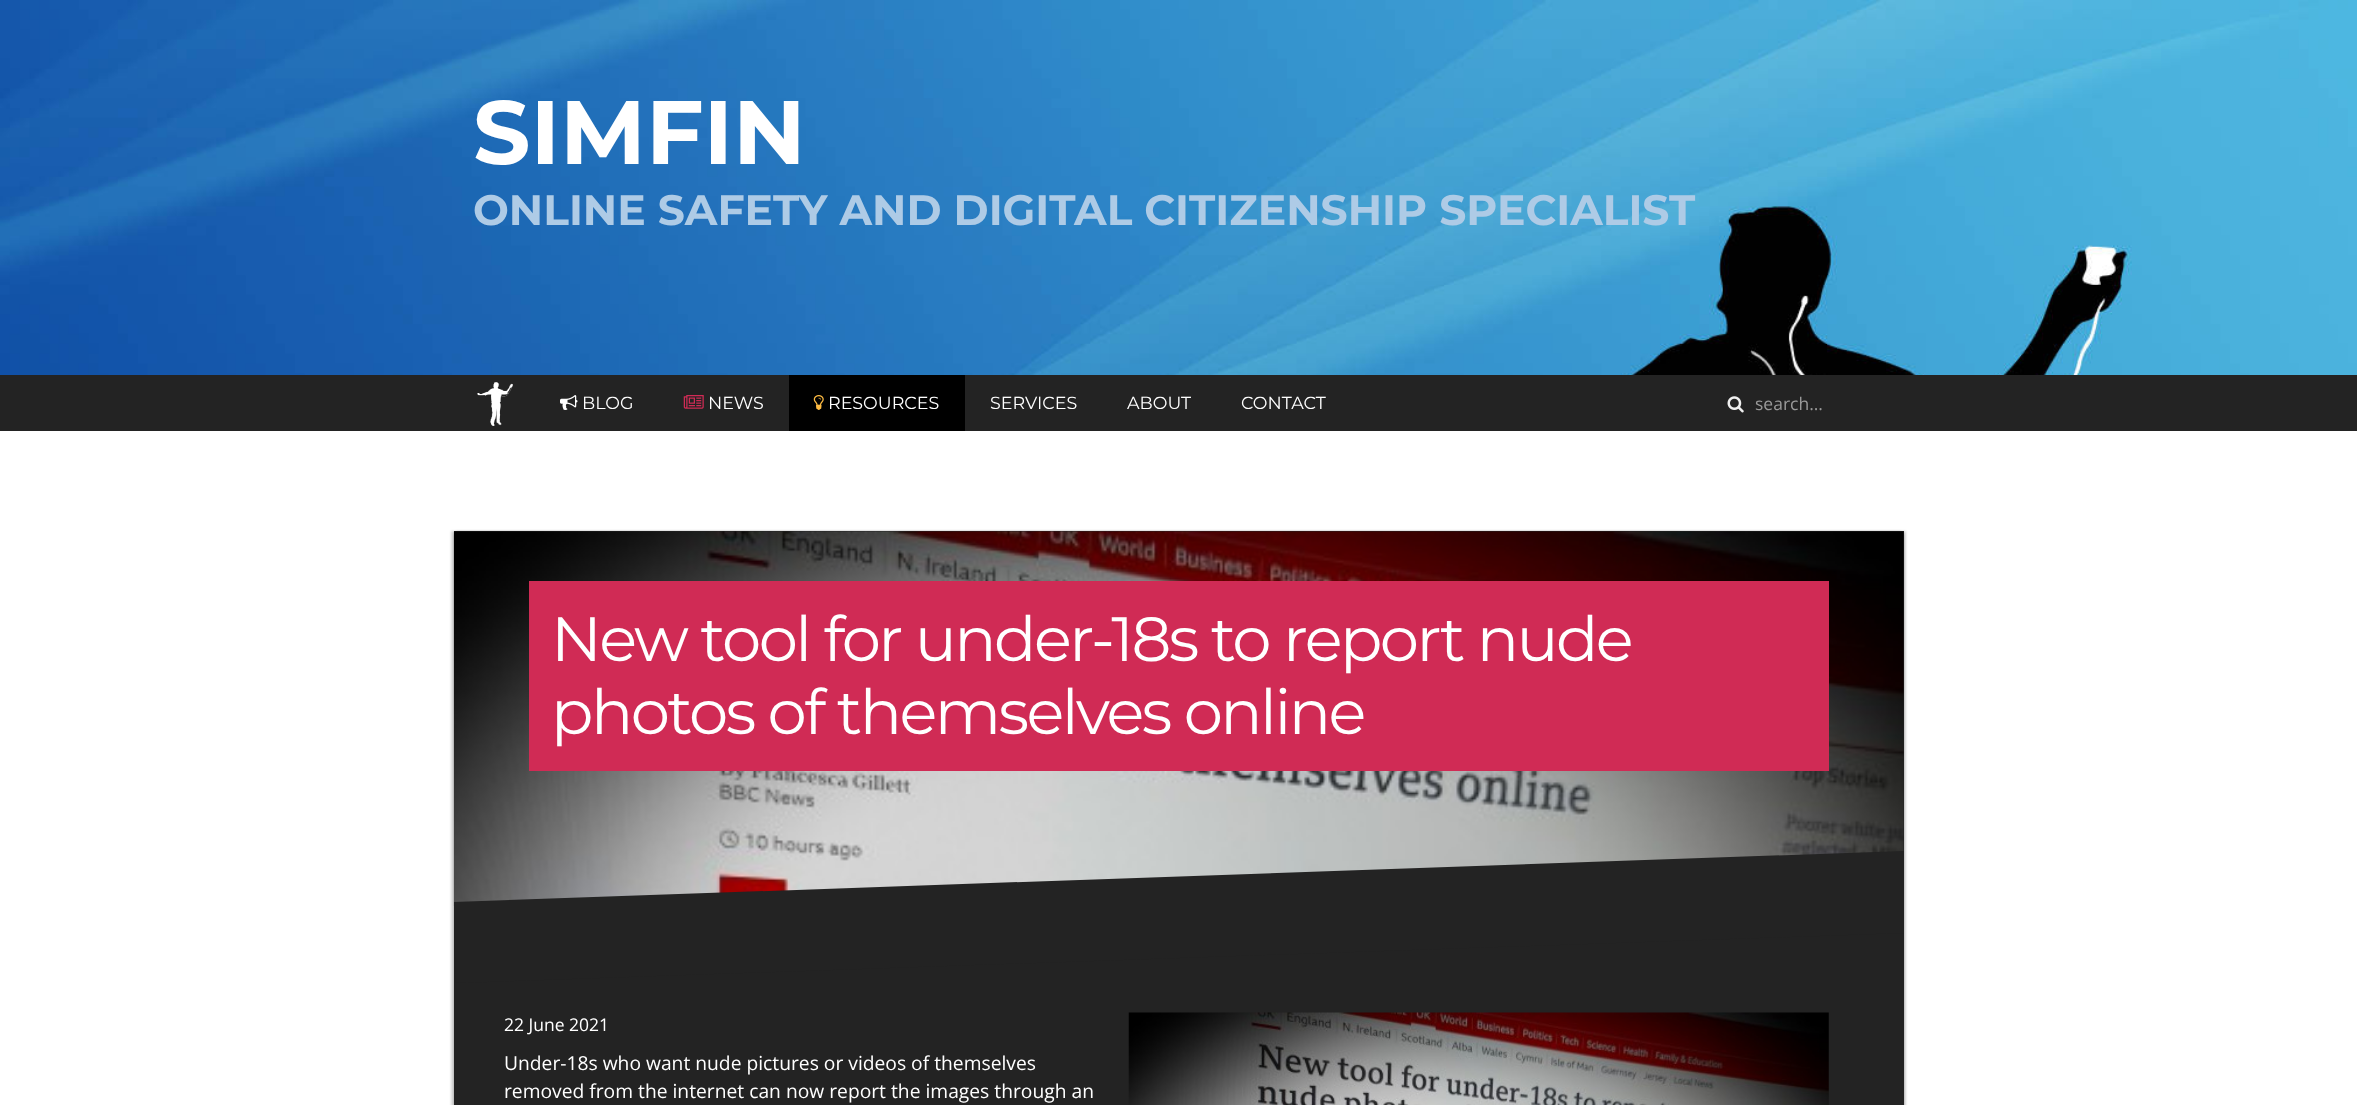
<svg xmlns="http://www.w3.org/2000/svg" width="2357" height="1105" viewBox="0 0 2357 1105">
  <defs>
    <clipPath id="clip1"><path d="M454 531h1450v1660H454z"/></clipPath>
  </defs>
  <rect width="100%" height="100%" fill="#fff"/>
  <image x="0" y="0" width="2357" height="375" href="img/1.png"/>
  <path d="M0 375h2357v56H0z" fill="#232323"/>
  <image x="477" y="382" width="36" height="44" href="img/2.png"/>
  <image x="560" y="395" width="18" height="15" href="img/3.png"/>
  <image x="683" y="395" width="21" height="14" href="img/4.png"/>
  <path d="M789 375h176v56H789z" fill="#000"/>
  <image x="813" y="395" width="11" height="15" href="img/5.png"/>
  <image x="1727" y="396" width="17" height="17" href="img/6.png"/>
  <path d="M454 534h1450v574H454z" fill="#0000003b" filter="blur(1px)"/>
  <path d="M456 531h1450v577H456z" fill="#00000029" filter="blur(1px)"/>
  <path d="M451 531h1450v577H451z" fill="#00000029" filter="blur(1px)"/>
  <path d="M454 531h1450v574H454z" fill="#232323"/>
  <image x="453" y="531" width="1451" height="375" href="img/7.png"/>
  <path d="M529 581h1300v190H529z" fill="#d02b55"/>
  <g clip-path="url(#clip1)">
    <path d="M453 902L1931 850L1934 932L456 983Z" fill="#232323"/>
  </g>
  <image x="1128" y="1012" width="701" height="93" href="img/8.png"/>
  <text x="473" y="164" font-family="Montserrat" font-size="90" font-weight="bold" fill="#fff">SIMFIN</text>
  <text x="473" y="225" font-family="Montserrat" font-size="42.5" font-weight="bold" fill="#aecbe6">ONLINE SAFETY AND DIGITAL CITIZENSHIP SPECIALIST</text>
  <g font-family="Montserrat" font-size="17.5" fill="#fff">
    <text x="582" y="409">BLOG</text>
    <text x="708" y="409">NEWS</text>
    <text x="828" y="409">RESOURCES</text>
    <text x="990" y="409">SERVICES</text>
    <text x="1127" y="409">ABOUT</text>
    <text x="1241" y="409">CONTACT</text>
  </g>
  <text x="1755" y="410" font-family="Open Sans" font-size="17.5" fill="#999">search...</text>
  <g font-family="Montserrat" font-size="62.5" letter-spacing="-2.5" fill="#fff">
    <text x="551" y="661">New tool for under-18s to report nude</text>
    <text x="551" y="734">photos of themselves online</text>
  </g>
  <text x="504" y="1031" font-family="Open Sans" font-size="17.5" fill="#fff">22 June 2021</text>
  <g font-family="Open Sans" font-size="19.25" fill="#fff">
    <text x="504" y="1070">Under-18s who want nude pictures or videos of themselves</text>
    <text x="504" y="1098">removed from the internet can now report the images through an</text>
  </g>
</svg>
